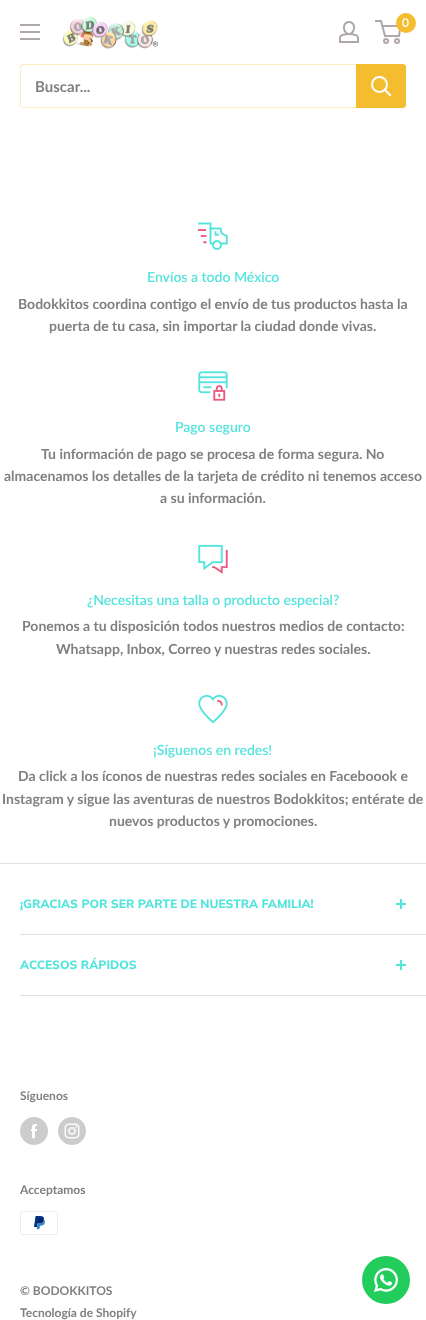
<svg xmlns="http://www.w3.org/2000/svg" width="426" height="1320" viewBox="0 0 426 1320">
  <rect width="100%" height="100%" fill="#fff"/>
  <image x="62" y="17" width="97" height="32" href="img/1.png"/>
  <image x="339" y="21" width="20" height="22" href="img/2.png"/>
  <circle cx="386" cy="41" r="2" fill="none" stroke="#b0a7aa" stroke-width="2"/>
  <circle cx="397" cy="41" r="2" fill="none" stroke="#b0a7aa" stroke-width="2"/>
  <path d="M382.5 26H400.5L399 36H385L381 21H375" fill="none" stroke="#b0a7aa" stroke-width="2"/>
  <circle cx="406" cy="23" r="10" fill="#f4bc2f"/>
  <image x="20" y="24" width="20" height="16" href="img/3.png"/>
  <path d="M21 107C21 108 22 108 23 108H403C405 108 406 107 406 105V67C406 66 406 65 405 65V98C405 100 407 107 402 107Z" fill="#fcebc1"/>
  <path d="M24 65H405C405 64 404 64 403 64H23C21 64 20 65 20 67V105C20 106 20 107 21 107V74C21 72 19 65 24 65Z" fill="#fcebc1"/>
  <path d="M356 64H403C404.5 64 406 65.5 406 67V105C406 106.5 404.5 108 403 108H356Z" fill="#f4bc2f"/>
  <path d="M390 95L385 90" fill="none" stroke="#fff" stroke-width="2" stroke-linecap="square"/>
  <circle cx="379.5" cy="84.5" r="7.5" fill="none" stroke="#fff" stroke-width="2"/>
  <image x="198" y="222" width="30" height="28" href="img/4.png"/>
  <image x="198" y="371" width="30" height="30" href="img/5.png"/>
  <image x="198" y="544" width="30" height="30" href="img/6.png"/>
  <image x="198" y="694" width="30" height="30" href="img/7.png"/>
  <path d="M0 863h426v1H0z" fill="#e1e1e1"/>
  <path d="M20 934h406v1H20z" fill="#e1e1e1"/>
  <path d="M400 899h2v10H400z" fill="#53e4dd"/>
  <path d="M396 903h10v2H396z" fill="#53e4dd"/>
  <path d="M20 995h406v1H20z" fill="#e1e1e1"/>
  <path d="M400 960h2v10H400z" fill="#53e4dd"/>
  <path d="M396 964h10v2H396z" fill="#53e4dd"/>
  <image x="20" y="1117" width="28" height="28" href="img/8.png"/>
  <image x="58" y="1117" width="28" height="28" href="img/9.png"/>
  <image x="20" y="1211" width="38" height="24" href="img/10.png"/>
  <circle cx="386" cy="1280" r="24" fill="#22cd5b"/>
  <image x="374" y="1268" width="24" height="24" href="img/11.png"/>
  <text x="402" y="27" font-family="Lato" font-size="12" font-weight="600" fill="#fff">0</text>
  <text x="35" y="92" font-family="Lato" font-size="15" font-weight="bold" fill="#817f80">Buscar...</text>
  <text x="147" y="282" font-family="Lato" font-size="14" font-weight="600" fill="#53e4dd">Envíos a todo México</text>
  <g font-family="Lato" font-size="14" font-weight="bold" fill="#817f80">
    <text x="18" y="309">Bodokkitos coordina contigo el envío de tus productos hasta la</text>
    <text x="49" y="331">puerta de tu casa, sin importar la ciudad donde vivas.</text>
  </g>
  <text x="175" y="432" font-family="Lato" font-size="14" font-weight="600" fill="#53e4dd">Pago seguro</text>
  <g font-family="Lato" font-size="14" font-weight="bold" fill="#817f80">
    <text x="41" y="459">Tu información de pago se procesa de forma segura. No</text>
    <text x="4" y="481">almacenamos los detalles de la tarjeta de crédito ni tenemos acceso</text>
    <text x="160" y="503">a su información.</text>
  </g>
  <text x="87" y="605" font-family="Lato" font-size="14" font-weight="600" fill="#53e4dd">¿Necesitas una talla o producto especial?</text>
  <g font-family="Lato" font-size="14" font-weight="bold" fill="#817f80">
    <text x="22" y="631">Ponemos a tu disposición todos nuestros medios de contacto:</text>
    <text x="56" y="654">Whatsapp, Inbox, Correo y nuestras redes sociales.</text>
  </g>
  <text x="153" y="755" font-family="Lato" font-size="14" font-weight="600" fill="#53e4dd">¡Síguenos en redes!</text>
  <g font-family="Lato" font-size="14" font-weight="bold" fill="#817f80">
    <text x="18" y="781">Da click a los íconos de nuestras redes sociales en Faceboook e</text>
    <text x="2" y="804">Instagram y sigue las aventuras de nuestros Bodokkitos; entérate de</text>
    <text x="109" y="826">nuevos productos y promociones.</text>
  </g>
  <g font-family="Muli" font-size="12" font-weight="800" fill="#53e4dd">
    <text x="20" y="908">¡GRACIAS POR SER PARTE DE NUESTRA FAMILIA!</text>
    <text x="20" y="969">ACCESOS RÁPIDOS</text>
  </g>
  <g font-family="Lato" font-size="12" font-weight="bold" fill="#817f80">
    <text x="20" y="1100">Síguenos</text>
    <text x="20" y="1194">Acceptamos</text>
    <text x="20" y="1295">© BODOKKITOS</text>
    <text x="20" y="1317">Tecnología de Shopify</text>
  </g>
</svg>
